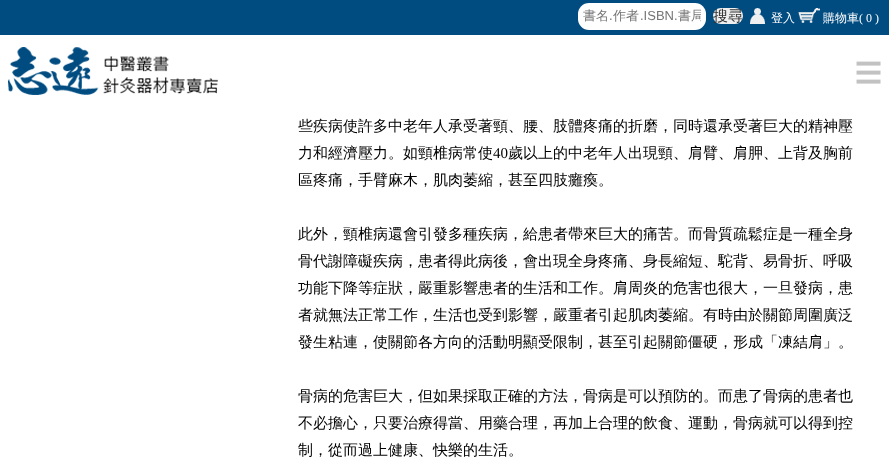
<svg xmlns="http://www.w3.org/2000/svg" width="889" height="463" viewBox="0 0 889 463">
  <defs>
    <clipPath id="clip1"><path d="M583 7h118v18H583z"/></clipPath>
  </defs>
  <rect width="100%" height="100%" fill="#fff"/>
  <image x="0" y="0" width="889" height="107" href="img/1.png"/>
  <rect x="578" y="3" width="128" height="27" rx="11" fill="#fff"/>
  <rect x="713" y="8" width="30" height="16" rx="8" fill="#efefef"/>
  <image x="750" y="8" width="15" height="16" href="img/2.png"/>
  <image x="798" y="8" width="22" height="15" href="img/3.png"/>
  <image x="8" y="47" width="210" height="48" href="img/4.png"/>
  <image x="856" y="61" width="25" height="23" href="img/5.png"/>
  <g clip-path="url(#clip1)">
    <text x="583" y="20" font-family="WenQuanYi Zen Hei" font-size="13" font-weight="500" fill="#757575">書名</text>
  </g>
  <text x="609" y="20" font-family="Liberation Sans" font-size="13" fill="#757575">.</text>
  <text x="613" y="20" font-family="WenQuanYi Zen Hei" font-size="13" font-weight="500" fill="#757575">作者</text>
  <text x="640" y="20" font-family="Liberation Sans" font-size="13" fill="#757575">.ISBN.</text>
  <g clip-path="url(#clip1)">
    <text x="678" y="20" font-family="WenQuanYi Zen Hei" font-size="13" font-weight="500" fill="#757575">書局</text>
  </g>
  <text x="713" y="21" font-family="WenQuanYi Zen Hei" font-size="15" font-weight="500" fill="#333">搜尋</text>
  <g font-family="WenQuanYi Zen Hei" font-size="12" font-weight="500" fill="#fff">
    <text x="771" y="22">登入</text>
    <text x="823" y="22">購物車</text>
  </g>
  <text x="859" y="22" font-family="Liberation Serif" font-size="12" fill="#fff">( 0 )</text>
  <g font-family="WenQuanYi Zen Hei" font-size="15" font-weight="500" fill="#000">
    <text x="298" y="131">些疾病使許多中老年人承受著頸、腰、肢體疼痛的折磨，同時還承受著巨大的精神壓</text>
    <text x="298" y="158">力和經濟壓力。如頸椎病常使</text>
  </g>
  <text x="493" y="158" font-family="Liberation Serif" font-size="15" fill="#000">40</text>
  <g font-family="WenQuanYi Zen Hei" font-size="15" font-weight="500" fill="#000">
    <text x="508" y="158">歲以上的中老年人出現頸、肩臂、肩胛、上背及胸前</text>
    <text x="298" y="185">區疼痛，手臂麻木，肌肉萎縮，甚至四肢癱瘓。</text>
    <text x="298" y="239">此外，頸椎病還會引發多種疾病，給患者帶來巨大的痛苦。而骨質疏鬆症是一種全身</text>
    <text x="298" y="266">骨代謝障礙疾病，患者得此病後，會出現全身疼痛、身長縮短、駝背、易骨折、呼吸</text>
    <text x="298" y="293">功能下降等症狀，嚴重影響患者的生活和工作。肩周炎的危害也很大，一旦發病，患</text>
    <text x="298" y="320">者就無法正常工作，生活也受到影響，嚴重者引起肌肉萎縮。有時由於關節周圍廣泛</text>
    <text x="298" y="347">發生粘連，使關節各方向的活動明顯受限制，甚至引起關節僵硬，形成「凍結肩」。</text>
    <text x="298" y="401">骨病的危害巨大，但如果採取正確的方法，骨病是可以預防的。而患了骨病的患者也</text>
    <text x="298" y="428">不必擔心，只要治療得當、用藥合理，再加上合理的飲食、運動，骨病就可以得到控</text>
    <text x="298" y="455">制，從而過上健康、快樂的生活。</text>
  </g>
</svg>
